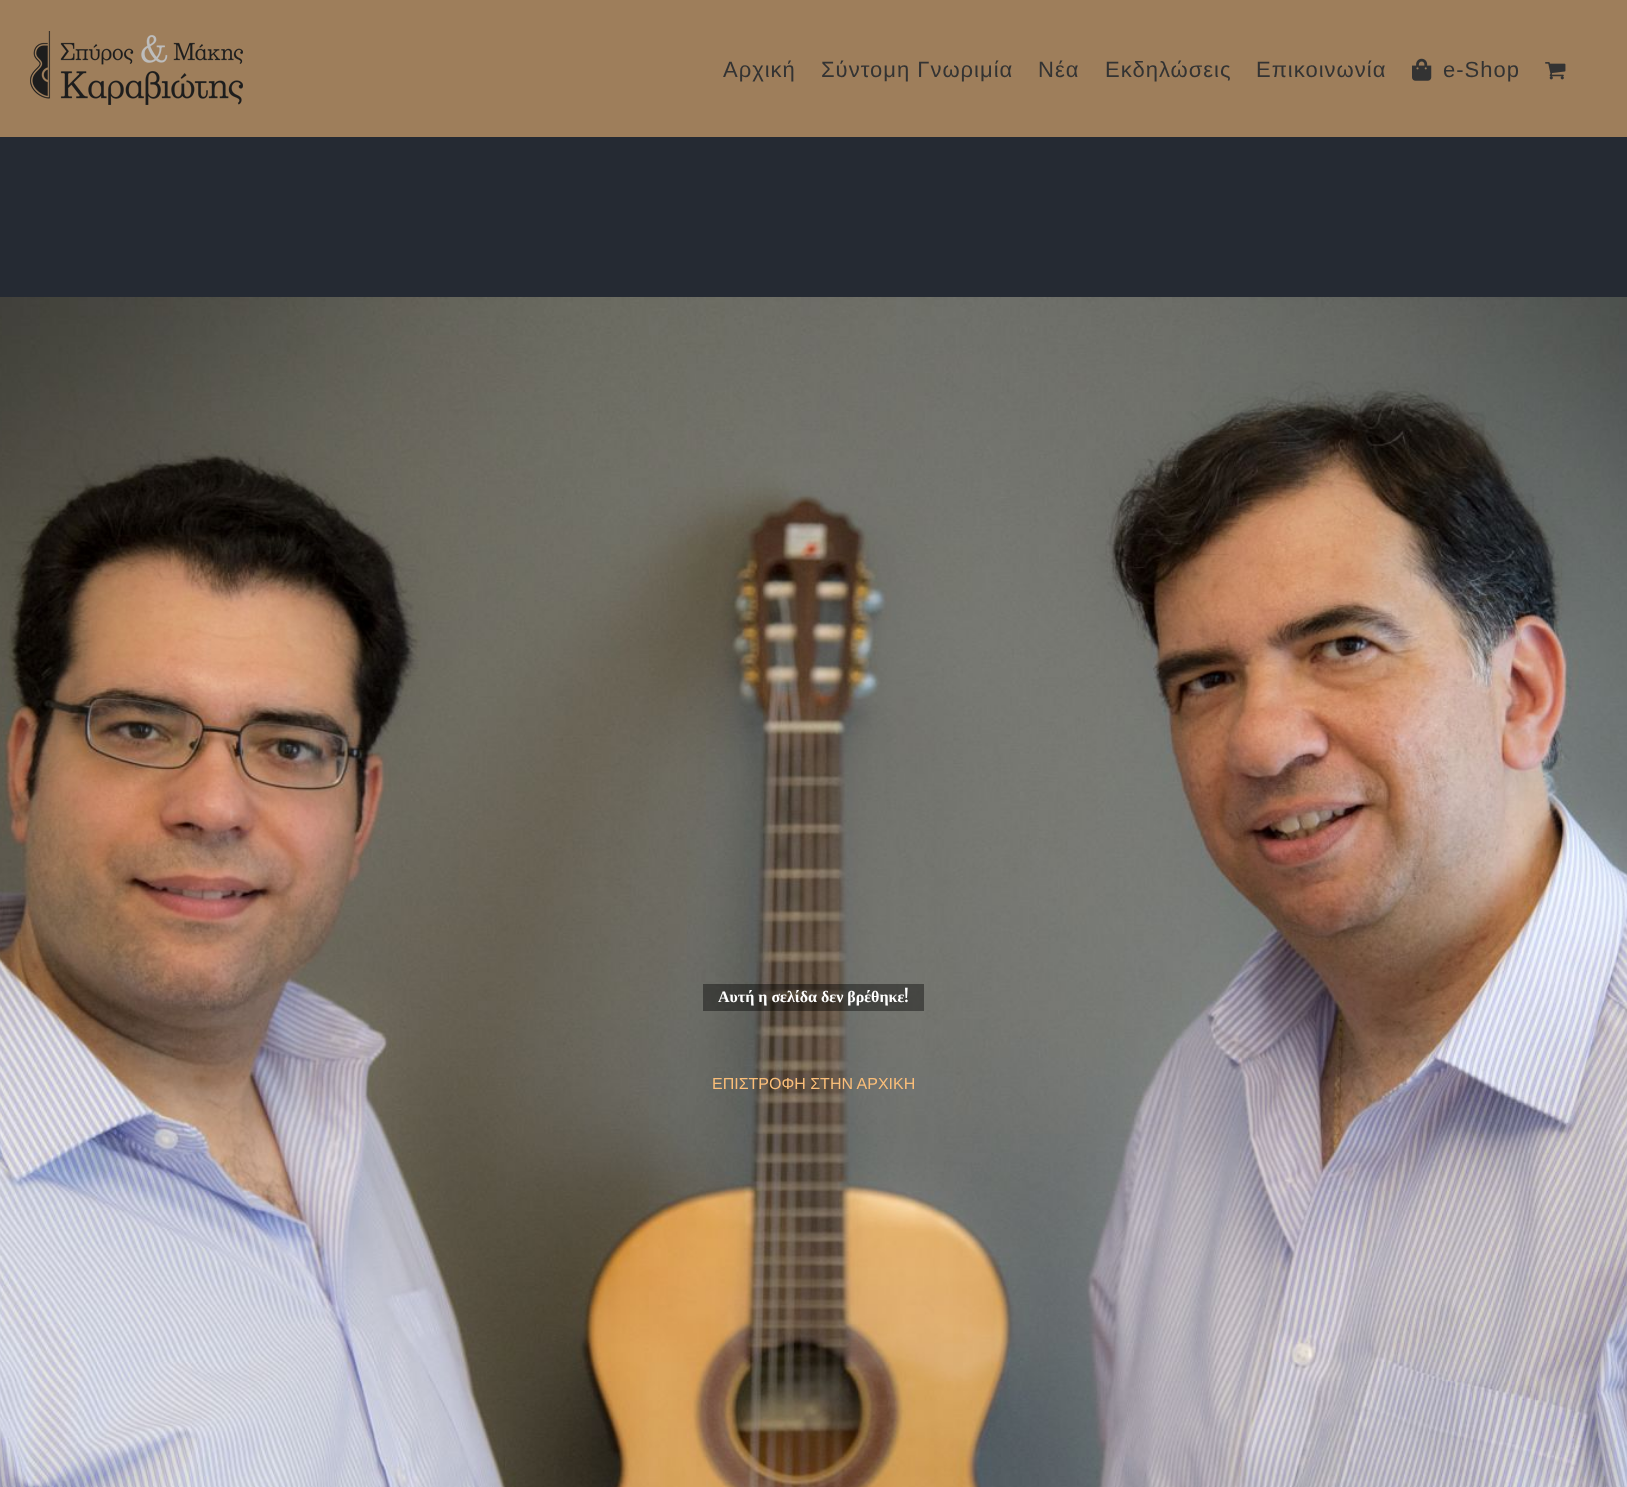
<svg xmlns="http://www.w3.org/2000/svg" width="1627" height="1487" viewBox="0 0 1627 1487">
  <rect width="100%" height="100%" fill="#252a33"/>
  <path d="M0 0h1627v137H0z" fill="#9e7e5b"/>
  <image x="30" y="31" width="213" height="74" href="img/1.png"/>
  <image x="1412" y="58" width="20" height="23" href="img/2.png"/>
  <image x="1545" y="62" width="21" height="18" href="img/3.png"/>
  <image x="0" y="297" width="1627" height="1190" href="img/4.png"/>
  <path d="M703 984h221v27H703z" fill="#00000066"/>
  <g font-family="Liberation Sans" font-size="22" letter-spacing="1" fill="#333">
    <text x="723" y="77">Αρχική</text>
    <text x="821" y="77">Σύντομη Γνωριμία</text>
    <text x="1038" y="77">Νέα</text>
    <text x="1105" y="77">Εκδηλώσεις</text>
    <text x="1256" y="77">Επικοινωνία</text>
    <text x="1443" y="77">e-Shop</text>
  </g>
  <text x="718" y="1002" font-family="Liberation Serif" font-size="16" font-weight="bold" fill="#fff">Αυτή η σελίδα δεν βρέθηκε</text>
  <text x="904" y="1002" font-family="Merriweather" font-size="16" font-weight="bold" fill="#fff">!</text>
  <text x="712" y="1089" font-family="Liberation Sans" font-size="16" fill="#fabe79">ΕΠΙΣΤΡΟΦΗ ΣΤΗΝ ΑΡΧΙΚΗ</text>
</svg>
